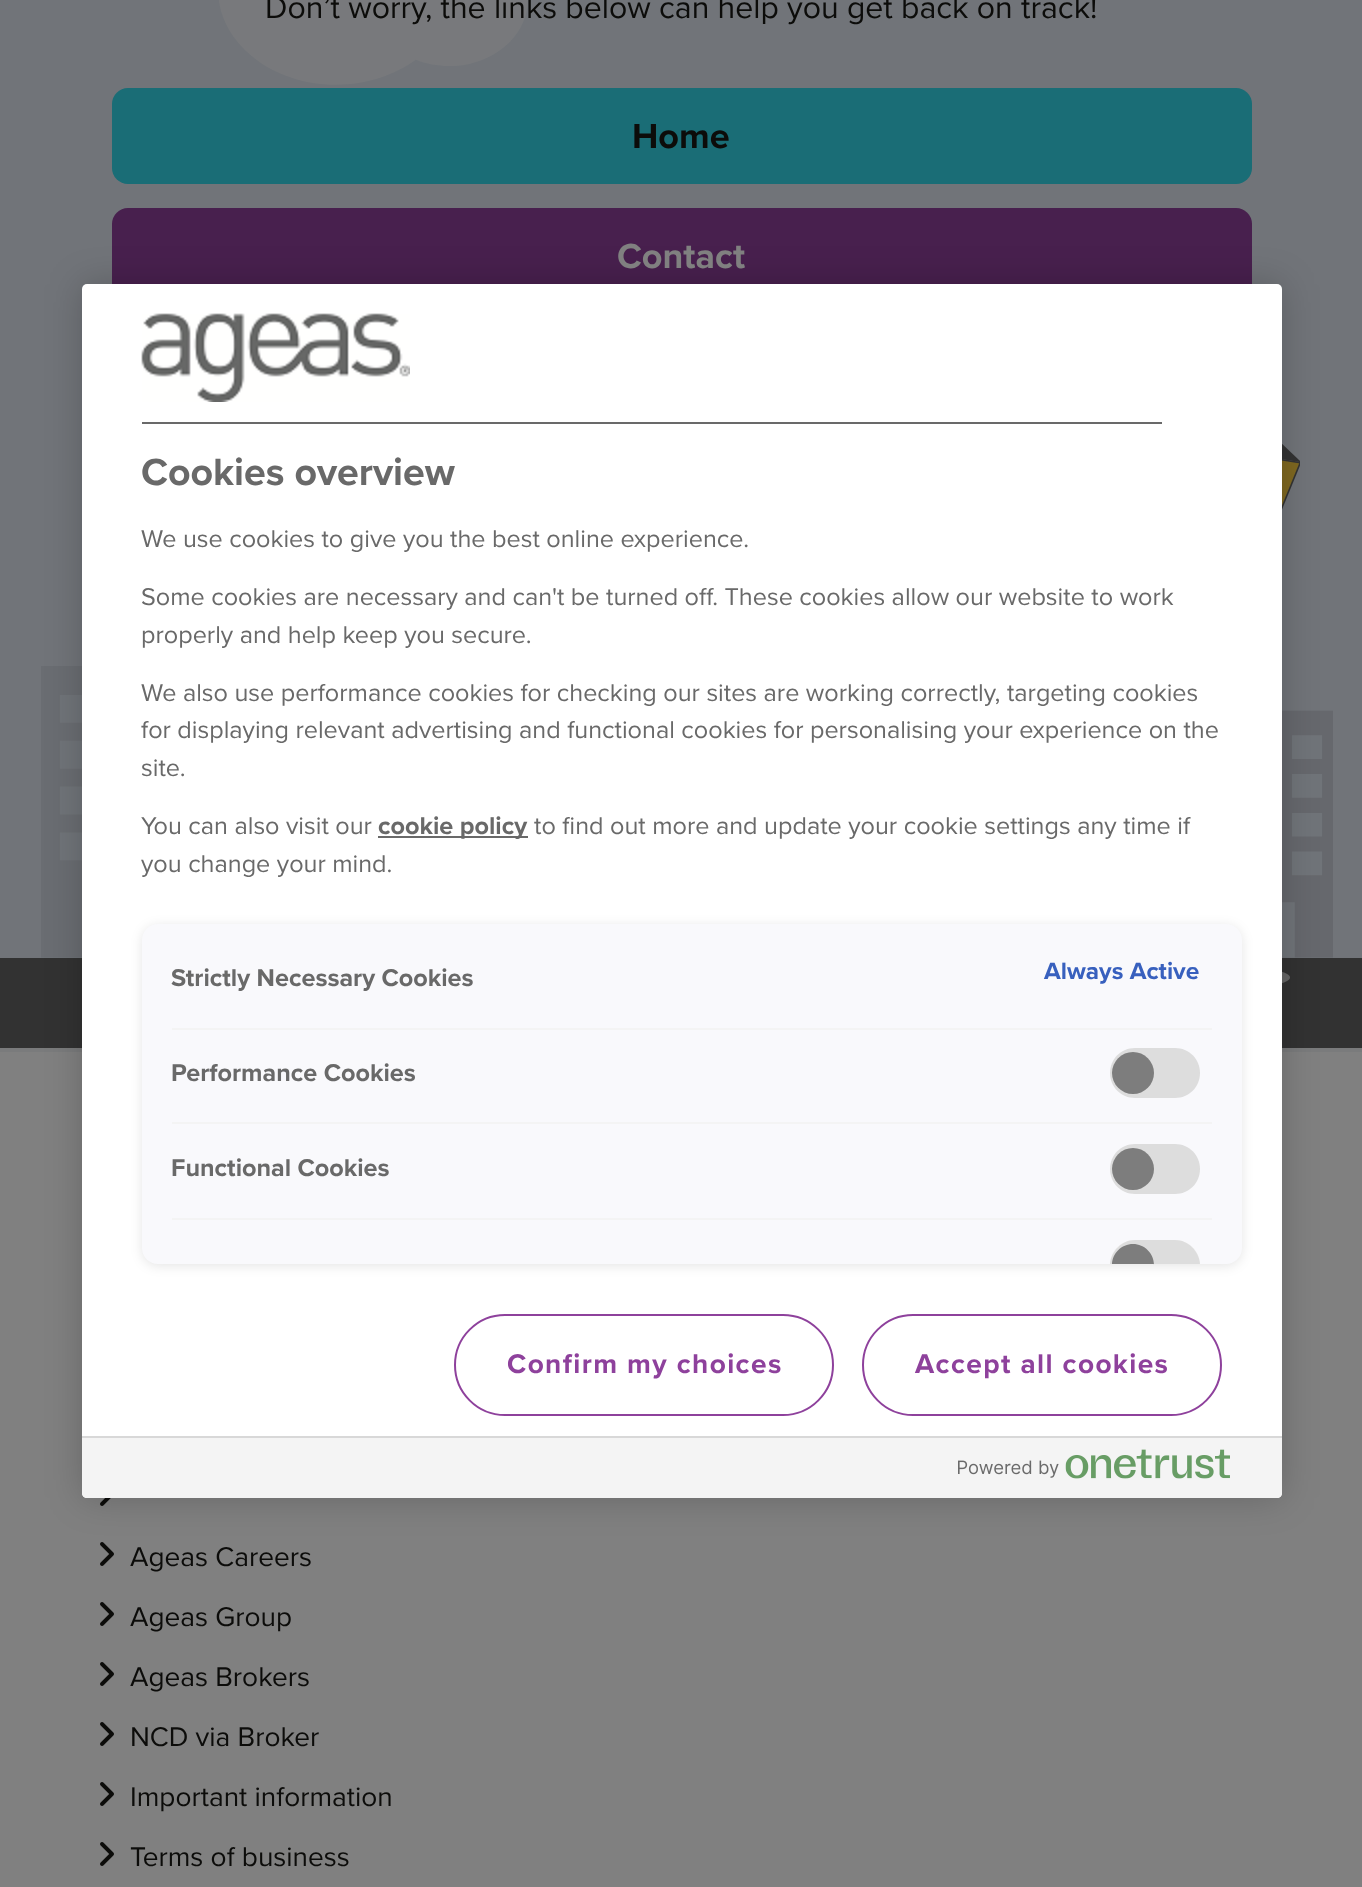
<svg xmlns="http://www.w3.org/2000/svg" width="1362" height="1887" viewBox="0 0 1362 1887">
  <rect width="100%" height="100%" fill="#808080"/>
  <path d="M0 0h1362v958H0z" fill="#717479"/>
  <image x="219" y="0" width="309" height="85" href="img/1.png"/>
  <image x="41" y="666" width="41" height="292" href="img/2.png"/>
  <image x="1282" y="710" width="51" height="248" href="img/4.png"/>
  <path d="M0 958h1362v90H0z" fill="#323232"/>
  <image x="1282" y="444" width="18" height="540" href="img/3.png"/>
  <rect x="112" y="88" width="1140" height="96" rx="16" fill="#1a6d76"/>
  <rect x="112" y="208" width="1140" height="96" rx="16" fill="#48204e"/>
  <path d="M0 1048h1362v4H0z" fill="#7a7b7c"/>
  <image x="100" y="1498" width="11" height="8" href="img/5.png"/>
  <image x="100" y="1542" width="14" height="24" href="img/6.png"/>
  <image x="100" y="1602" width="14" height="24" href="img/6.png"/>
  <image x="100" y="1662" width="14" height="24" href="img/6.png"/>
  <image x="100" y="1722" width="14" height="24" href="img/6.png"/>
  <image x="100" y="1782" width="14" height="24" href="img/6.png"/>
  <image x="100" y="1842" width="14" height="24" href="img/6.png"/>
  <rect x="82" y="284" width="1200" height="1214" rx="5" fill="#00000033" filter="blur(18px)"/>
  <rect x="82" y="284" width="1200" height="1214" rx="5" fill="#fff"/>
  <image x="141" y="313" width="269" height="89" href="img/7.png"/>
  <path d="M142 422h1020v2H142z" fill="#696969"/>
  <path d="M378 836h150v2H378z" fill="#696969"/>
  <rect x="142" y="926" width="1100" height="340" rx="16" fill="#0000001a" filter="blur(6px)"/>
  <rect x="142" y="924" width="1100" height="340" rx="16" fill="#f9f9fc"/>
  <path d="M172 1028h1040v2H172z" fill="#f4f4f4"/>
  <path d="M172 1122h1040v2H172z" fill="#f4f4f4"/>
  <path d="M1135 1048H1175C1189 1048 1200 1059 1200 1073C1200 1087 1189 1098 1175 1098H1135C1121 1098 1110 1087 1110 1073C1110 1059 1121 1048 1135 1048Z" fill="#ddd"/>
  <circle cx="1133" cy="1073" r="21" fill="#7d7d7d"/>
  <path d="M172 1218h1040v2H172z" fill="#f4f4f4"/>
  <path d="M1135 1144H1175C1189 1144 1200 1155 1200 1169C1200 1183 1189 1194 1175 1194H1135C1121 1194 1110 1183 1110 1169C1110 1155 1121 1144 1135 1144Z" fill="#ddd"/>
  <circle cx="1133" cy="1169" r="21" fill="#7d7d7d"/>
  <path d="M1135 1240H1175C1189 1240 1200 1251 1200 1265V1264H1110V1265C1110 1251 1121 1240 1135 1240Z" fill="#f2f1f1"/>
  <path d="M1135 1240C1122 1240 1111 1251 1110 1264H1200C1199 1251 1188 1240 1175 1240Z" fill="#ddd"/>
  <path d="M1133 1244C1144.5 1244 1154 1253.5 1154 1265V1264H1112V1265C1112 1253.5 1121.5 1244 1133 1244Z" fill="#7d7d7d"/>
  <rect x="455" y="1315" width="378" height="100" rx="50" fill="none" stroke="#8e419c" stroke-width="2"/>
  <rect x="863" y="1315" width="358" height="100" rx="50" fill="none" stroke="#8e419c" stroke-width="2"/>
  <path d="M82 1436H1282V1493C1282 1496 1280 1498 1277 1498H87C84 1498 82 1496 82 1493Z" fill="#f4f4f4"/>
  <path d="M82 1436h1200v2H82z" fill="#d8d8d8"/>
  <image x="958" y="1449" width="272" height="30" href="img/8.png"/>
  <text x="265" y="18" font-family="Proxima Nova" font-size="32" fill="#0c0c0a">Don’t worry, the links below can help you get back on track!</text>
  <text x="632" y="148" font-family="Proxima Nova" font-size="36" font-weight="bold" fill="#0c0c0a">Home</text>
  <text x="617" y="268" font-family="Proxima Nova" font-size="36" font-weight="bold" fill="#808080">Contact</text>
  <g font-family="Proxima Nova" font-size="28" fill="#0c0c0a">
    <text x="130" y="1566">Ageas Careers</text>
    <text x="130" y="1626">Ageas Group</text>
    <text x="130" y="1686">Ageas Brokers</text>
    <text x="130" y="1746">NCD via Broker</text>
    <text x="130" y="1806">Important information</text>
    <text x="130" y="1866">Terms of business</text>
  </g>
  <text x="141" y="485" font-family="Proxima Nova" font-size="39.25" font-weight="bold" fill="#696969">Cookies overview</text>
  <g font-family="Proxima Nova" font-size="25.2" fill="#696969">
    <text x="141" y="547">We use cookies to give you the best online experience.</text>
    <text x="141" y="605">Some cookies are necessary and can't be turned off. These cookies allow our website to work</text>
    <text x="141" y="643">properly and help keep you secure.</text>
    <text x="141" y="701">We also use performance cookies for checking our sites are working correctly, targeting cookies</text>
    <text x="141" y="738">for displaying relevant advertising and functional cookies for personalising your experience on the</text>
    <text x="141" y="776">site.</text>
    <text x="141" y="834">You can also visit our</text>
  </g>
  <text x="378" y="834" font-family="Proxima Nova" font-size="25.2" font-weight="bold" fill="#696969">cookie policy</text>
  <g font-family="Proxima Nova" font-size="25.2" fill="#696969">
    <text x="534" y="834">to find out more and update your cookie settings any time if</text>
    <text x="141" y="872">you change your mind.</text>
  </g>
  <text x="171" y="986" font-family="Proxima Nova" font-size="25.2" font-weight="bold" fill="#696969">Strictly Necessary Cookies</text>
  <text x="1044" y="979" font-family="Proxima Nova" font-size="24.5" font-weight="bold" fill="#3860be">Always Active</text>
  <g font-family="Proxima Nova" font-size="25.2" font-weight="bold" fill="#696969">
    <text x="171" y="1081">Performance Cookies</text>
    <text x="171" y="1176">Functional Cookies</text>
  </g>
  <g font-family="Proxima Nova" font-size="28" font-weight="bold" letter-spacing="1.4" fill="#8e419c">
    <text x="507" y="1373">Confirm my choices</text>
    <text x="915" y="1373">Accept all cookies</text>
  </g>
</svg>
